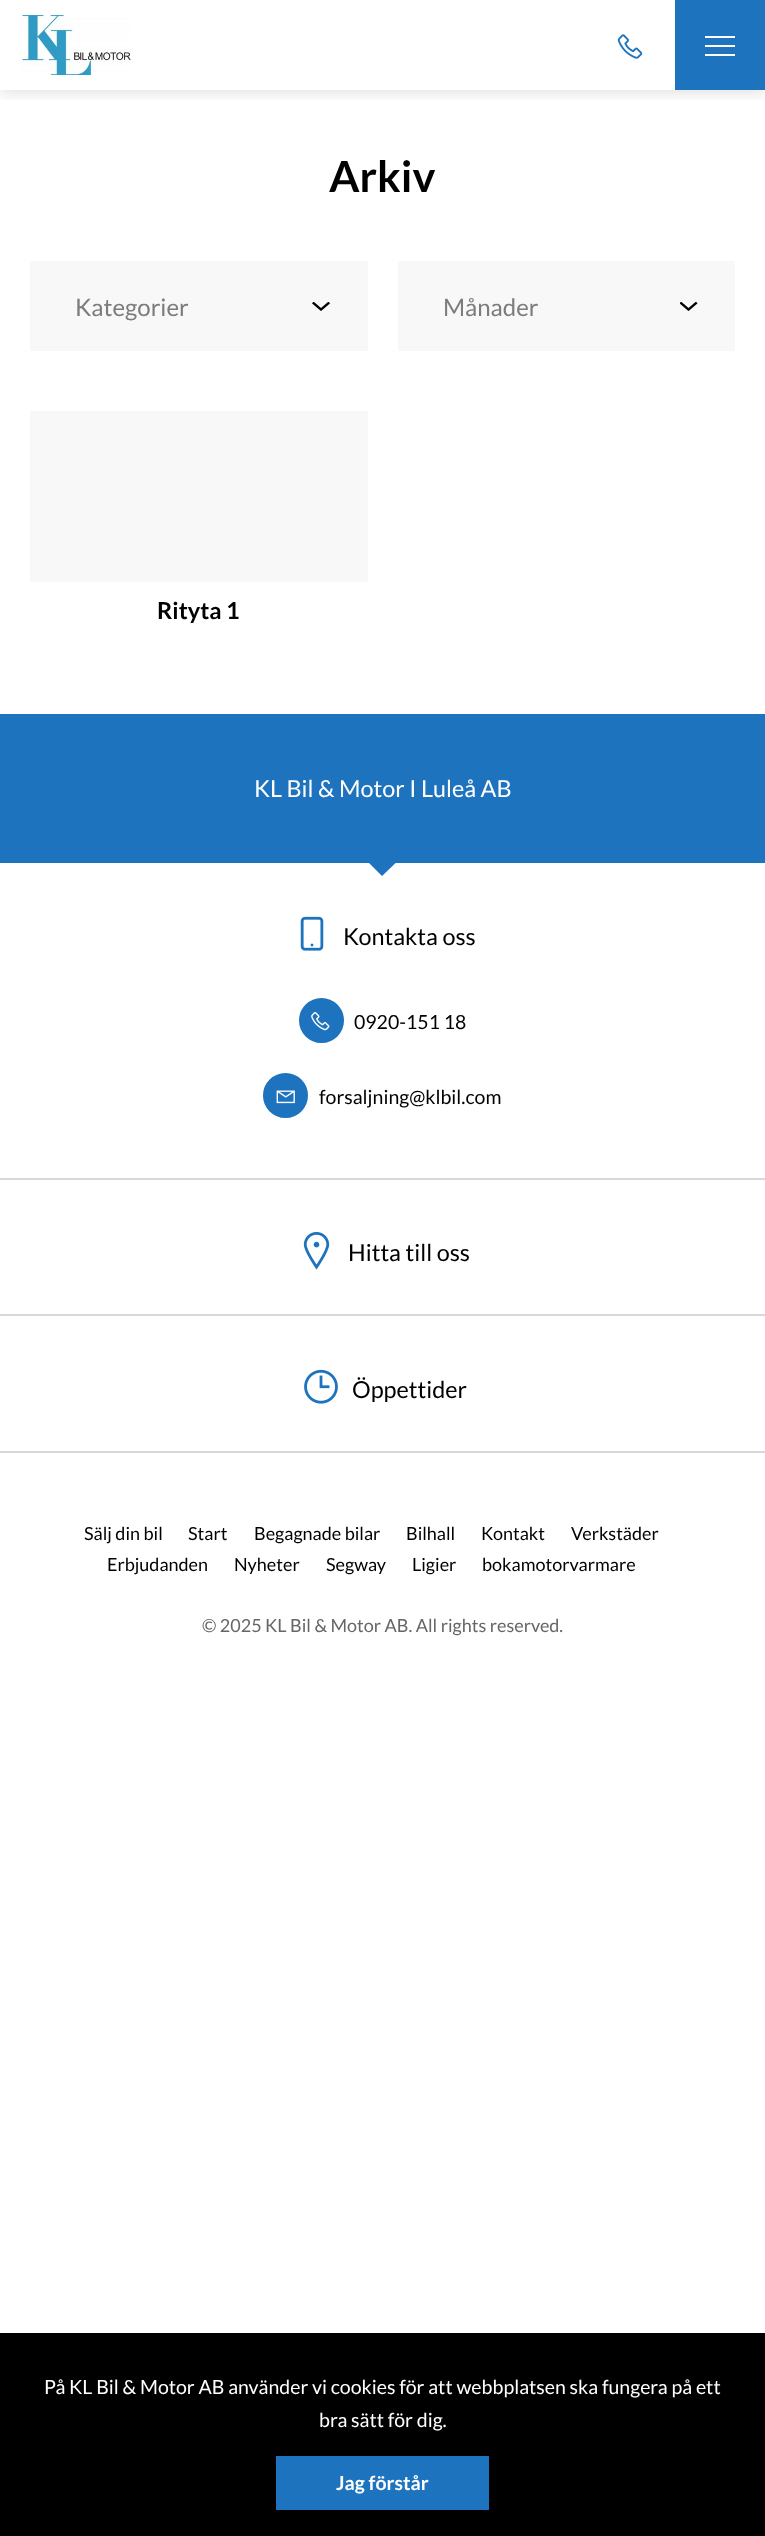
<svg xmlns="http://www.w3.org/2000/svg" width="765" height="2536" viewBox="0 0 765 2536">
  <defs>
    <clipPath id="clip1"><path d="M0 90h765v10H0z"/></clipPath>
  </defs>
  <rect width="100%" height="100%" fill="#fff"/>
  <g clip-path="url(#clip1)">
    <path d="M0 3h765v90H0z" fill="#0000001f" filter="blur(7.5px)"/>
  </g>
  <image x="22" y="15" width="109" height="60" href="img/1.png"/>
  <image x="617" y="34" width="26" height="25" href="img/2.png"/>
  <path d="M675 0h90v90H675z" fill="#1e73be"/>
  <path d="M705 36h30v2H705z" fill="#fff"/>
  <path d="M705 45h30v2H705z" fill="#fff"/>
  <path d="M705 54h30v2H705z" fill="#fff"/>
  <path d="M30 261h338v90H30z" fill="#f8f8f8"/>
  <image x="312" y="302" width="18" height="9" href="img/3.png"/>
  <path d="M398 261h337v90H398z" fill="#f8f8f8"/>
  <image x="680" y="302" width="18" height="9" href="img/4.png"/>
  <path d="M30 411h338v171H30z" fill="#f8f8f8"/>
  <path d="M0 714h765v149H0z" fill="#1e73be"/>
  <path d="M382 876L361 855L383 834L404 855Z" fill="#1e73be"/>
  <path d="M0 1451h765v2H0z" fill="#d8d8d8"/>
  <path d="M0 1178h765v2H0z" fill="#d8d8d8"/>
  <image x="300" y="916" width="24" height="35" href="img/5.png"/>
  <circle cx="321.5" cy="1020.5" r="21" fill="#1e73be" stroke="#1e73be" stroke-width="3"/>
  <image x="311" y="1012" width="19" height="19" href="img/6.png"/>
  <circle cx="285.5" cy="1095.5" r="21" fill="#1e73be" stroke="#1e73be" stroke-width="3"/>
  <image x="276" y="1090" width="19" height="14" href="img/7.png"/>
  <path d="M0 1314h765v2H0z" fill="#d8d8d8"/>
  <image x="303" y="1232" width="27" height="38" href="img/8.png"/>
  <image x="304" y="1369" width="34" height="35" href="img/9.png"/>
  <path d="M0 2333h765v203H0z" fill="#000"/>
  <path d="M276 2456h213v54H276z" fill="#1e73be"/>
  <text x="329" y="192" font-family="Lato" font-size="43" font-weight="bold" fill="#000">Arkiv</text>
  <g font-family="Lato" font-size="24" fill="#7c7c7c">
    <text x="75" y="316">Kategorier</text>
    <text x="443" y="316">Månader</text>
  </g>
  <text x="157" y="619" font-family="Lato" font-size="23.4" font-weight="bold" fill="#000">Rityta 1</text>
  <text x="254" y="797" font-family="Lato" font-size="23.4" fill="#fff">KL Bil &amp; Motor I Luleå AB</text>
  <text x="343" y="945" font-family="Lato" font-size="23.4" fill="#000">Kontakta oss</text>
  <g font-family="Lato" font-size="19.5" fill="#000">
    <text x="354" y="1029">0920-151 18</text>
    <text x="319" y="1104">forsaljning@klbil.com</text>
  </g>
  <g font-family="Lato" font-size="23.4" fill="#000">
    <text x="348" y="1261">Hitta till oss</text>
    <text x="352" y="1398">Öppettider</text>
  </g>
  <g font-family="Lato" font-size="18" fill="#000">
    <text x="84" y="1540">Sälj din bil</text>
    <text x="188" y="1540">Start</text>
    <text x="254" y="1540">Begagnade bilar</text>
    <text x="406" y="1540">Bilhall</text>
    <text x="481" y="1540">Kontakt</text>
    <text x="571" y="1540">Verkstäder</text>
    <text x="107" y="1571">Erbjudanden</text>
    <text x="234" y="1571">Nyheter</text>
    <text x="326" y="1571">Segway</text>
    <text x="412" y="1571">Ligier</text>
    <text x="482" y="1571">bokamotorvarmare</text>
  </g>
  <text x="202" y="1632" font-family="Lato" font-size="18" fill="#666">© 2025 KL Bil &amp; Motor AB. All rights reserved.</text>
  <g font-family="Lato" font-size="19.5" fill="#fff">
    <text x="44" y="2394">På KL Bil &amp; Motor AB använder vi cookies för att webbplatsen ska fungera på ett</text>
    <text x="319" y="2427">bra sätt för dig.</text>
  </g>
  <text x="336" y="2490" font-family="Lato" font-size="19.5" font-weight="bold" fill="#fff">Jag förstår</text>
</svg>
